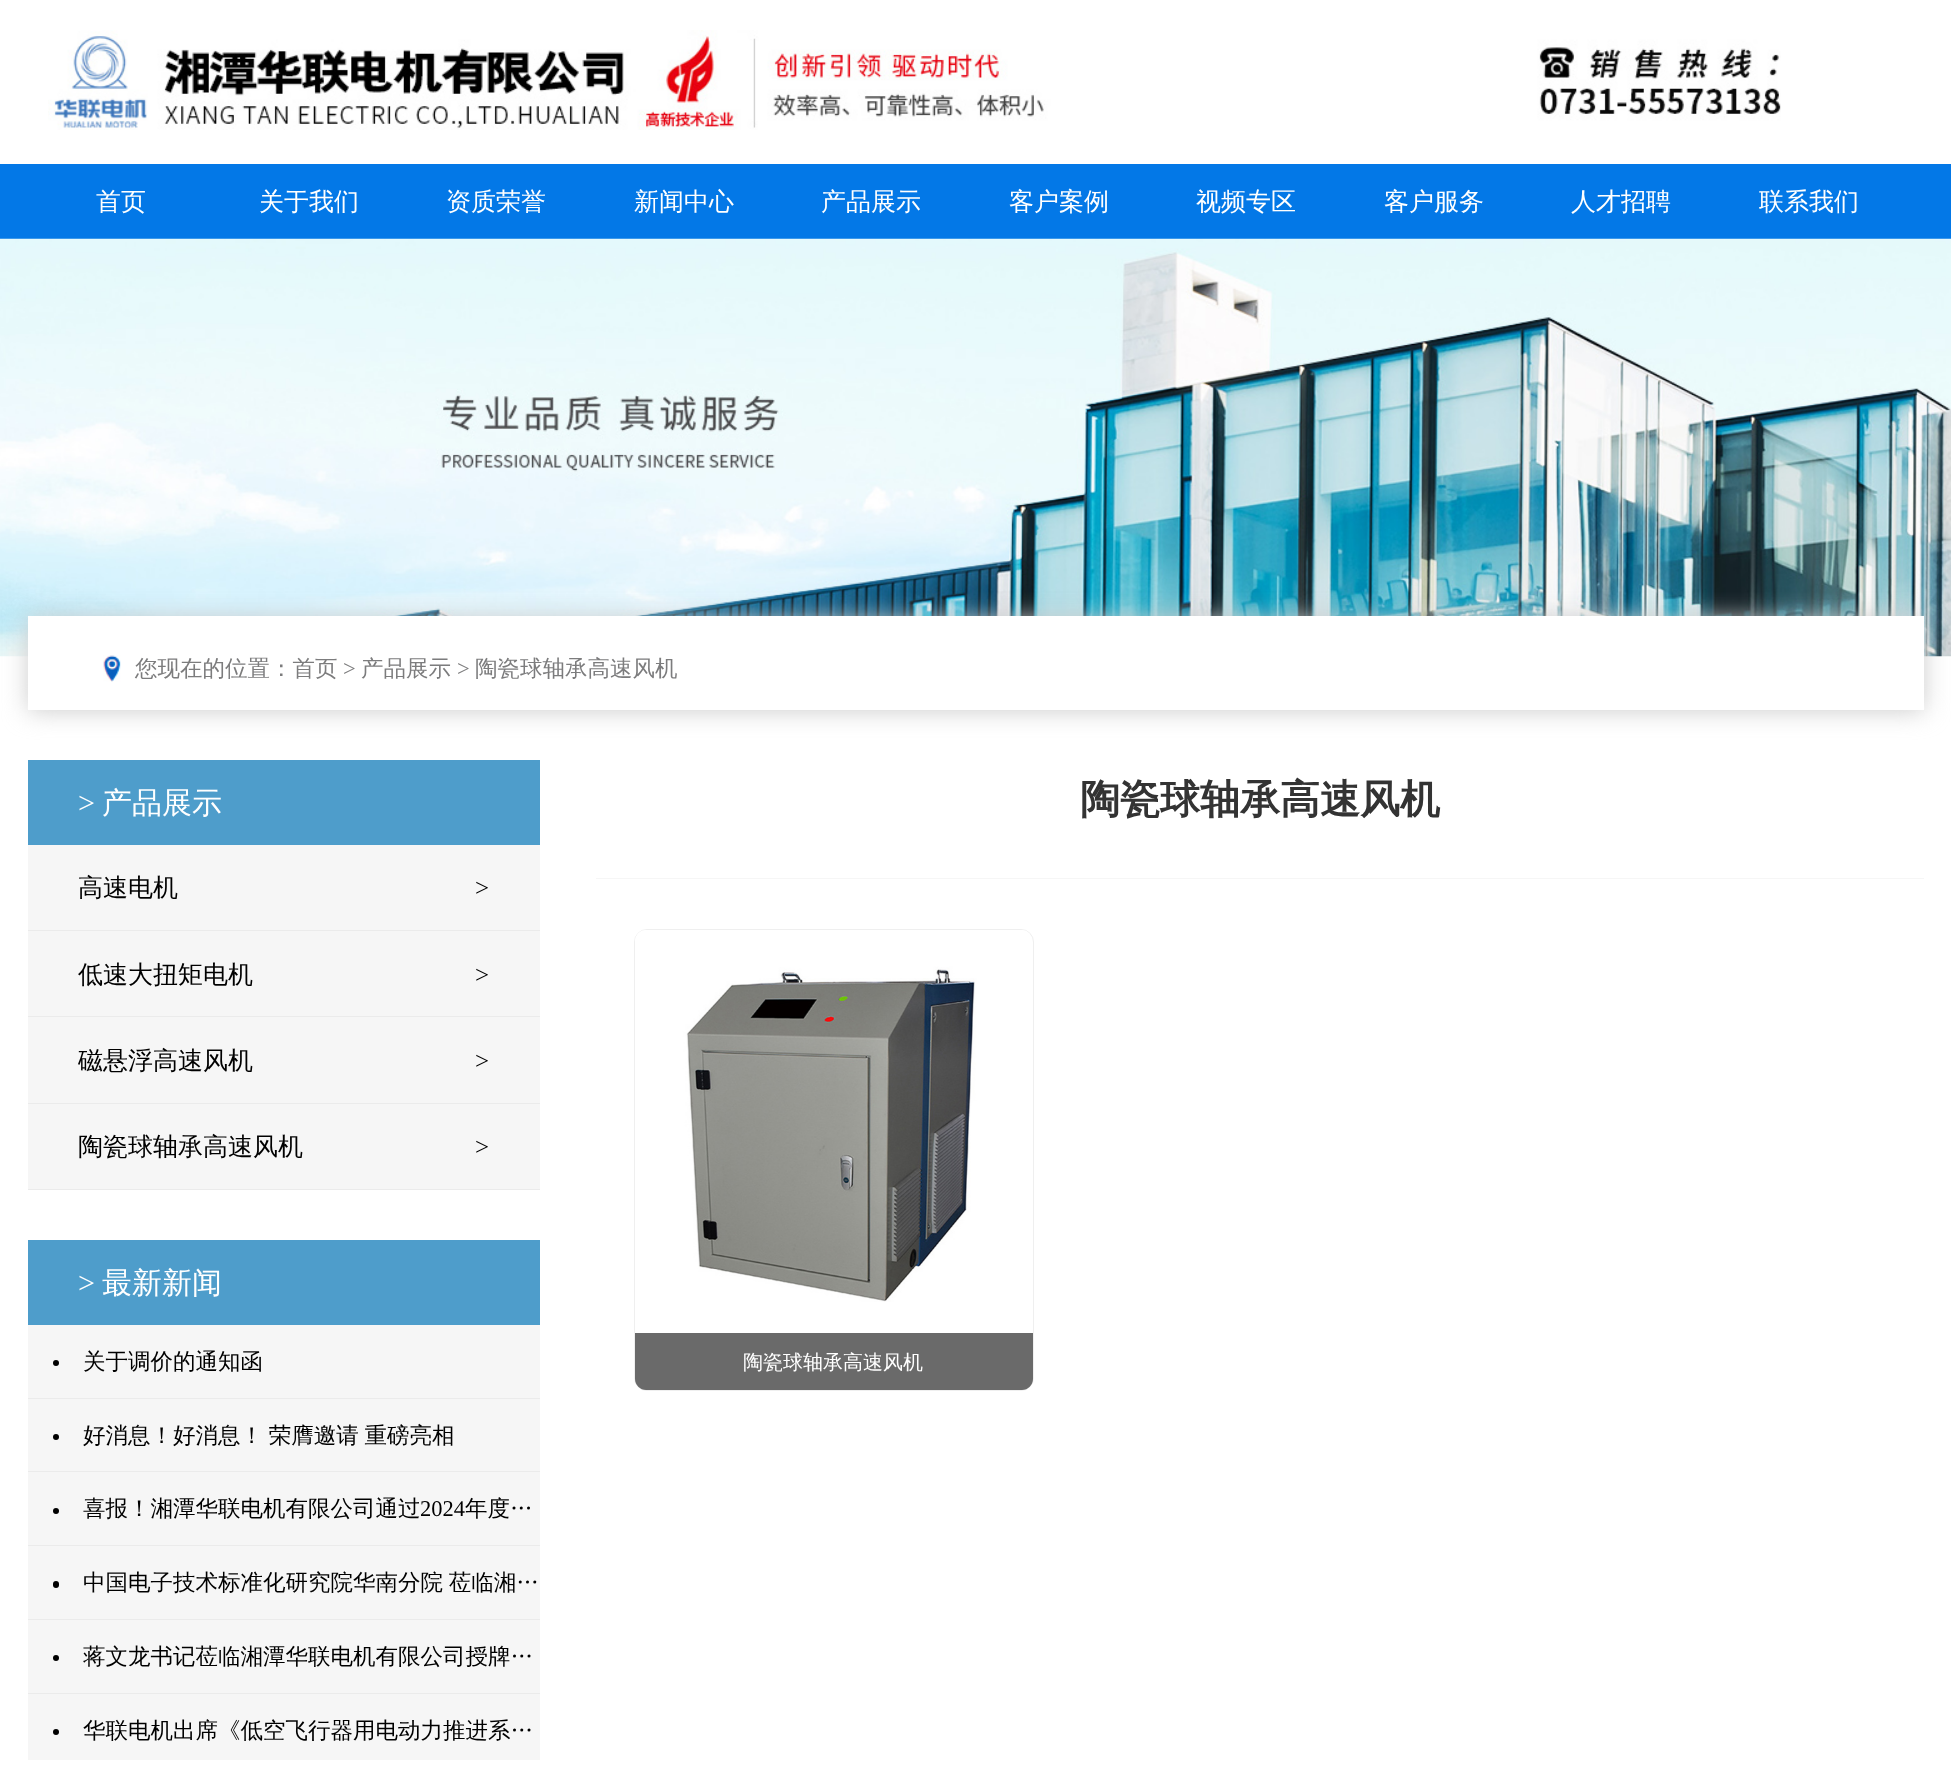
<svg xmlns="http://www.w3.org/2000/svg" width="1951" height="1789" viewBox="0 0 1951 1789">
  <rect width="100%" height="100%" fill="#fff"/>
  <image x="48" y="30" width="1733" height="100" href="img/1.png"/>
  <path d="M0 164h1951v75H0z" fill="#0378e7"/>
  <image x="0" y="238" width="1951" height="419" href="img/2.png"/>
  <path d="M28 618h1896v93H28z" fill="#ccc" filter="blur(12.5px)"/>
  <path d="M28 616h1896v94H28z" fill="#fff"/>
  <image x="103" y="655" width="18" height="27" href="img/3.png"/>
  <path d="M28 760h512v85H28z" fill="#4e9dcb"/>
  <path d="M28 845h512v344H28z" fill="#f6f6f6"/>
  <path d="M28 930h512v1H28z" fill="#ebebeb"/>
  <path d="M28 1016h512v1H28z" fill="#ebebeb"/>
  <path d="M28 1103h512v1H28z" fill="#ebebeb"/>
  <path d="M28 1189h512v1H28z" fill="#ebebeb"/>
  <path d="M28 1240h512v85H28z" fill="#4e9dcb"/>
  <path d="M28 1325h512v435H28z" fill="#f6f6f6"/>
  <path d="M28 1398h512v1H28z" fill="#ebebeb"/>
  <circle cx="56" cy="1363" r="3" fill="#000"/>
  <path d="M28 1471h512v1H28z" fill="#ebebeb"/>
  <circle cx="56" cy="1437" r="3" fill="#000"/>
  <path d="M28 1545h512v1H28z" fill="#ebebeb"/>
  <circle cx="56" cy="1511" r="3" fill="#000"/>
  <path d="M28 1619h512v1H28z" fill="#ebebeb"/>
  <rect x="53" y="1581" width="6" height="7" rx="3" fill="#000"/>
  <path d="M28 1693h512v1H28z" fill="#ebebeb"/>
  <circle cx="56" cy="1658" r="3" fill="#000"/>
  <circle cx="56" cy="1732" r="3" fill="#000"/>
  <path d="M596 878h1328v1H596z" fill="#f6f6f6"/>
  <rect x="634.5" y="929.5" width="399" height="461" rx="12.5" fill="none" stroke="#efefef"/>
  <image x="635" y="930" width="395" height="372" href="img/4.png"/>
  <path d="M635 1333H1033V1379C1033 1385 1028 1390 1022 1390H646C640 1390 635 1385 635 1379Z" fill="#6a6a6a"/>
  <g font-family="WenQuanYi Zen Hei" font-size="25" font-weight="500" fill="#fff">
    <text x="96" y="210">首页</text>
    <text x="259" y="210">关于我们</text>
    <text x="446" y="210">资质荣誉</text>
    <text x="634" y="210">新闻中心</text>
    <text x="821" y="210">产品展示</text>
    <text x="1009" y="210">客户案例</text>
    <text x="1196" y="210">视频专区</text>
    <text x="1384" y="210">客户服务</text>
    <text x="1571" y="210">人才招聘</text>
    <text x="1759" y="210">联系我们</text>
  </g>
  <text x="135" y="676" font-family="WenQuanYi Zen Hei" font-size="22.5" font-weight="500" fill="#7c7c7d">您现在的位置：首页</text>
  <text x="343" y="676" font-family="Liberation Serif" font-size="22.5" fill="#7c7c7d">&gt;</text>
  <text x="361" y="676" font-family="WenQuanYi Zen Hei" font-size="22.5" font-weight="500" fill="#7c7c7d">产品展示</text>
  <text x="457" y="676" font-family="Liberation Serif" font-size="22.5" fill="#7c7c7d">&gt;</text>
  <text x="475" y="676" font-family="WenQuanYi Zen Hei" font-size="22.5" font-weight="500" fill="#7c7c7d">陶瓷球轴承高速风机</text>
  <text x="78" y="813" font-family="Liberation Serif" font-size="30" fill="#fff">&gt;</text>
  <text x="102" y="813" font-family="WenQuanYi Zen Hei" font-size="30" font-weight="500" fill="#fff">产品展示</text>
  <text x="78" y="896" font-family="WenQuanYi Zen Hei" font-size="25" font-weight="500" fill="#000">高速电机</text>
  <text x="475" y="896" font-family="Liberation Serif" font-size="25" fill="#000">&gt;</text>
  <text x="78" y="983" font-family="WenQuanYi Zen Hei" font-size="25" font-weight="500" fill="#000">低速大扭矩电机</text>
  <text x="475" y="983" font-family="Liberation Serif" font-size="25" fill="#000">&gt;</text>
  <text x="78" y="1069" font-family="WenQuanYi Zen Hei" font-size="25" font-weight="500" fill="#000">磁悬浮高速风机</text>
  <text x="475" y="1069" font-family="Liberation Serif" font-size="25" fill="#000">&gt;</text>
  <text x="78" y="1155" font-family="WenQuanYi Zen Hei" font-size="25" font-weight="500" fill="#000">陶瓷球轴承高速风机</text>
  <text x="475" y="1155" font-family="Liberation Serif" font-size="25" fill="#000">&gt;</text>
  <text x="78" y="1293" font-family="Liberation Serif" font-size="30" fill="#fff">&gt;</text>
  <text x="102" y="1293" font-family="WenQuanYi Zen Hei" font-size="30" font-weight="500" fill="#fff">最新新闻</text>
  <g font-family="WenQuanYi Zen Hei" font-size="22.5" font-weight="500" fill="#000">
    <text x="83" y="1369">关于调价的通知函</text>
    <text x="83" y="1443" word-spacing="-1">好消息！好消息！ 荣膺邀请 重磅亮相</text>
    <text x="83" y="1516">喜报！湘潭华联电机有限公司通过</text>
  </g>
  <text x="420" y="1516" font-family="Liberation Serif" font-size="22.5" fill="#000">2024</text>
  <g font-family="WenQuanYi Zen Hei" font-size="22.5" font-weight="500" fill="#000">
    <text x="465" y="1516">年度…</text>
    <text x="83" y="1590" word-spacing="-1">中国电子技术标准化研究院华南分院 莅临湘…</text>
    <text x="83" y="1664">蒋文龙书记莅临湘潭华联电机有限公司授牌…</text>
    <text x="83" y="1738">华联电机出席《低空飞行器用电动力推进系…</text>
  </g>
  <text x="1080" y="813" font-family="WenQuanYi Zen Hei" font-size="40" font-weight="bold" fill="#333">陶瓷球轴承高速风机</text>
  <text x="743" y="1369" font-family="WenQuanYi Zen Hei" font-size="20" font-weight="500" fill="#fff">陶瓷球轴承高速风机</text>
</svg>
